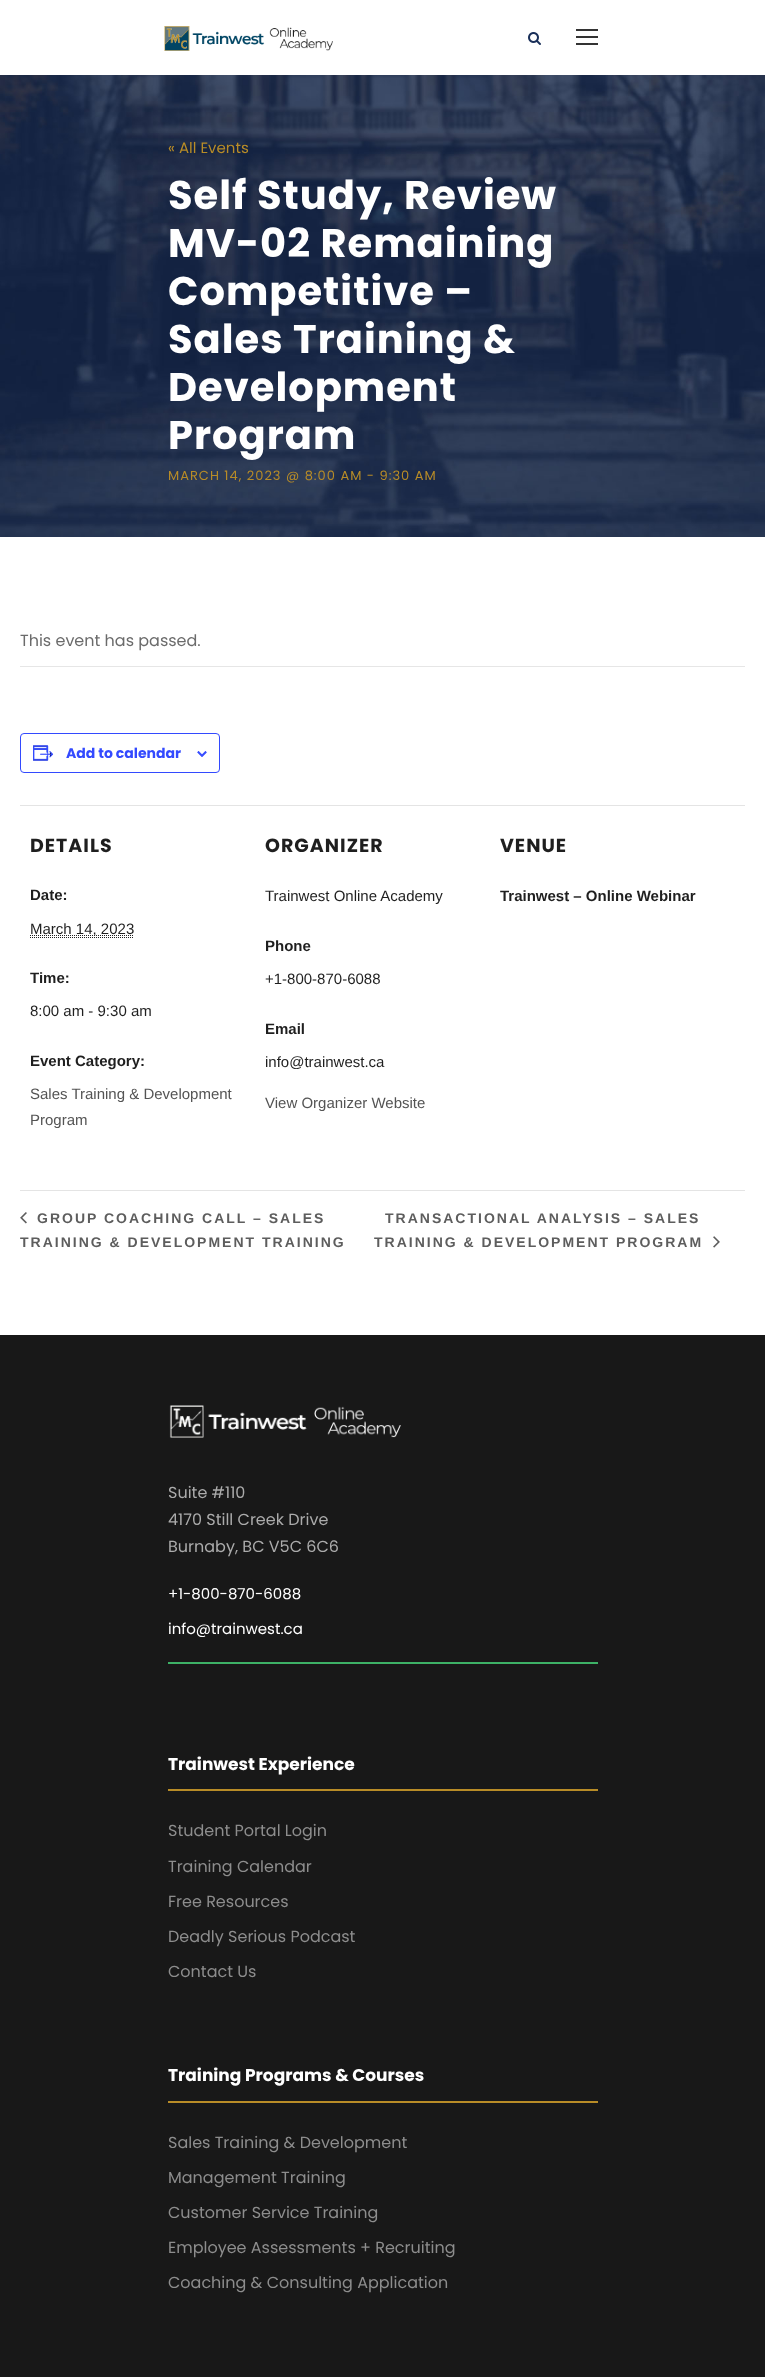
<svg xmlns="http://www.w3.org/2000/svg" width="765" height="2377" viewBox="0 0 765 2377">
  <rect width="100%" height="100%" fill="#fff"/>
  <image x="164" y="26" width="169" height="25" href="img/1.png"/>
  <image x="528" y="32" width="13" height="13" href="img/2.png"/>
  <path d="M576 29h22v2H576z" fill="#333"/>
  <path d="M576 36h22v2H576z" fill="#333"/>
  <path d="M576 43h22v2H576z" fill="#333"/>
  <image x="0" y="75" width="765" height="462" href="img/3.png"/>
  <path d="M20 666h725v1H20z" fill="#e6e6e6"/>
  <rect x="20.5" y="733.5" width="199" height="39" rx="3.5" fill="none" stroke="#334aff"/>
  <image x="33" y="745" width="21" height="16" href="img/4.png"/>
  <image x="197" y="751" width="10" height="6" href="img/5.png"/>
  <path d="M20 805h725v1H20z" fill="#e4e4e4"/>
  <path d="M30 937.5H134" fill="none" stroke="#1f1f1f" stroke-dasharray="1 1"/>
  <path d="M30 935.5H134" fill="none" stroke="#1f1f1f" stroke-dasharray="1 1"/>
  <path d="M20 1190h725v1H20z" fill="#e4e4e4"/>
  <image x="20" y="1212" width="7" height="12" href="img/6.png"/>
  <image x="713" y="1236" width="7" height="12" href="img/7.png"/>
  <path d="M0 1335h765v1042H0z" fill="#181818"/>
  <image x="169" y="1405" width="232" height="33" href="img/8.png"/>
  <path d="M168 1662h430v2H168z" fill="#3db166"/>
  <path d="M168 1789h430v2H168z" fill="#b88c27"/>
  <path d="M168 2101h430v2H168z" fill="#b88c27"/>
  <text x="168" y="153" font-family="Poppins" font-size="15" fill="#b88c27">« All Events</text>
  <g font-family="Poppins" font-size="40" font-weight="bold" letter-spacing="1" fill="#fff">
    <text x="168" y="209">Self Study, Review</text>
    <text x="168" y="257">MV-02 Remaining</text>
    <text x="168" y="305">Competitive –</text>
    <text x="168" y="353">Sales Training &amp;</text>
    <text x="168" y="401">Development</text>
    <text x="168" y="449">Program</text>
  </g>
  <text x="168" y="480" font-family="Poppins" font-size="13" letter-spacing="1" fill="#b88c27">MARCH 14, 2023 @ 8:00 AM - 9:30 AM</text>
  <text x="20" y="646" font-family="Poppins" font-size="16" fill="#6b6b6b">This event has passed.</text>
  <text x="66" y="758" font-family="Poppins" font-size="14" font-weight="bold" fill="#334aff">Add to calendar</text>
  <text x="30" y="852" font-family="Poppins" font-size="19" font-weight="bold" letter-spacing="1" fill="#1f1f1f">DETAILS</text>
  <text x="30" y="900" font-family="Liberation Sans" font-size="15" font-weight="bold" fill="#1f1f1f">Date:</text>
  <text x="30" y="934" font-family="Liberation Sans" font-size="15" fill="#1f1f1f">March 14, 2023</text>
  <text x="30" y="983" font-family="Liberation Sans" font-size="15" font-weight="bold" fill="#1f1f1f">Time:</text>
  <text x="30" y="1016" font-family="Liberation Sans" font-size="15" fill="#1f1f1f">8:00 am - 9:30 am</text>
  <text x="30" y="1066" font-family="Liberation Sans" font-size="15" font-weight="bold" fill="#1f1f1f">Event Category:</text>
  <g font-family="Liberation Sans" font-size="15" fill="#545454">
    <text x="30" y="1099">Sales Training &amp; Development</text>
    <text x="30" y="1125">Program</text>
  </g>
  <text x="265" y="852" font-family="Poppins" font-size="19" font-weight="bold" letter-spacing="1" fill="#1f1f1f">ORGANIZER</text>
  <text x="265" y="901" font-family="Liberation Sans" font-size="15" fill="#1f1f1f">Trainwest Online Academy</text>
  <text x="265" y="951" font-family="Liberation Sans" font-size="15" font-weight="bold" fill="#1f1f1f">Phone</text>
  <text x="265" y="984" font-family="Liberation Sans" font-size="15" fill="#1f1f1f">+1-800-870-6088</text>
  <text x="265" y="1034" font-family="Liberation Sans" font-size="15" font-weight="bold" fill="#1f1f1f">Email</text>
  <text x="265" y="1067" font-family="Liberation Sans" font-size="15" fill="#1f1f1f">info@trainwest.ca</text>
  <text x="265" y="1108" font-family="Liberation Sans" font-size="15" fill="#545454">View Organizer Website</text>
  <text x="500" y="852" font-family="Poppins" font-size="19" font-weight="bold" letter-spacing="1" fill="#1f1f1f">VENUE</text>
  <text x="500" y="901" font-family="Liberation Sans" font-size="15" font-weight="bold" fill="#1f1f1f">Trainwest – Online Webinar</text>
  <g font-family="Liberation Sans" font-size="14" font-weight="bold" letter-spacing="2" fill="#5d5d5d">
    <text x="37" y="1223">GROUP COACHING CALL – SALES</text>
    <text x="20" y="1247">TRAINING &amp; DEVELOPMENT TRAINING</text>
    <text x="385" y="1223">TRANSACTIONAL ANALYSIS – SALES</text>
    <text x="374" y="1247">TRAINING &amp; DEVELOPMENT PROGRAM</text>
  </g>
  <g font-family="Poppins" font-size="16" fill="#ababab">
    <text x="168" y="1498">Suite #110</text>
    <text x="168" y="1525">4170 Still Creek Drive</text>
    <text x="168" y="1552">Burnaby, BC V5C 6C6</text>
  </g>
  <g font-family="Poppins" font-size="15" fill="#fff">
    <text x="168" y="1599">+1-800-870-6088</text>
    <text x="168" y="1634">info@trainwest.ca</text>
  </g>
  <text x="168" y="1770" font-family="Poppins" font-size="17" font-weight="bold" fill="#fff">Trainwest Experience</text>
  <g font-family="Poppins" font-size="16" fill="#8d8d8d">
    <text x="168" y="1836">Student Portal Login</text>
    <text x="168" y="1872">Training Calendar</text>
    <text x="168" y="1907">Free Resources</text>
    <text x="168" y="1942">Deadly Serious Podcast</text>
    <text x="168" y="1977">Contact Us</text>
  </g>
  <text x="168" y="2081" font-family="Poppins" font-size="17" font-weight="bold" fill="#fff">Training Programs &amp; Courses</text>
  <g font-family="Poppins" font-size="16" fill="#8d8d8d">
    <text x="168" y="2148">Sales Training &amp; Development</text>
    <text x="168" y="2183">Management Training</text>
    <text x="168" y="2218">Customer Service Training</text>
    <text x="168" y="2253">Employee Assessments + Recruiting</text>
    <text x="168" y="2288">Coaching &amp; Consulting Application</text>
  </g>
</svg>
